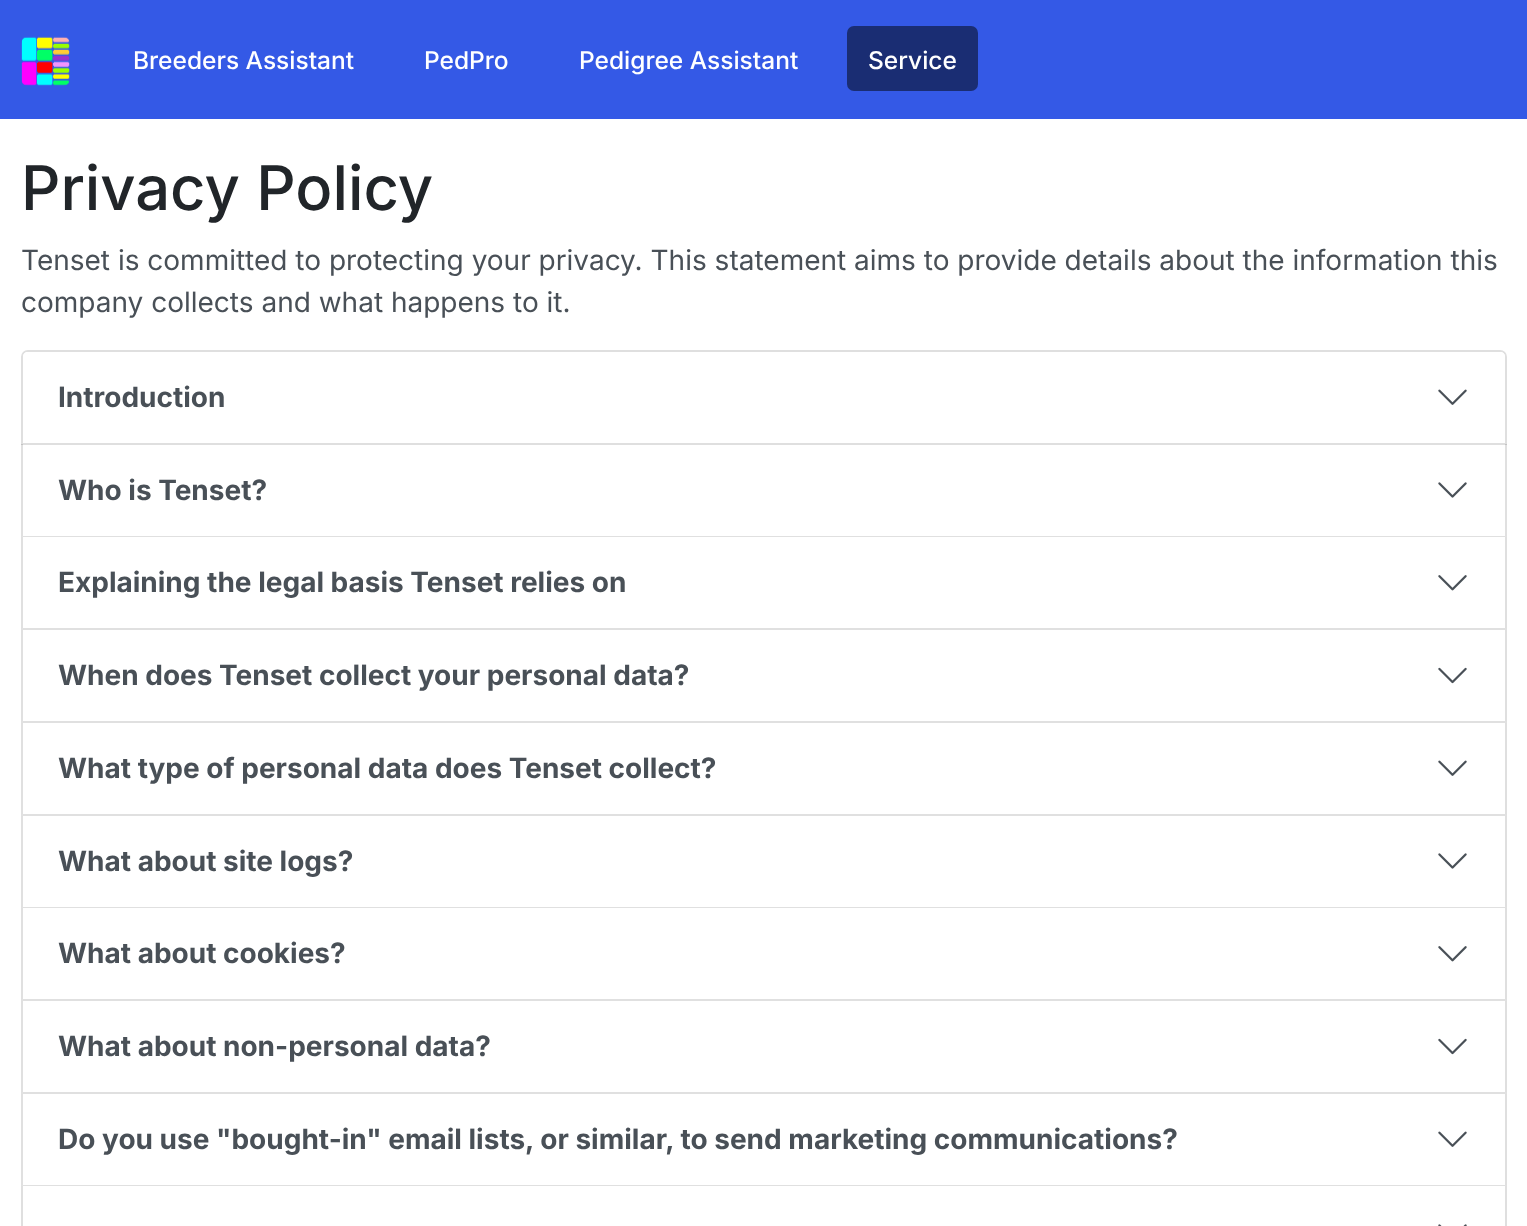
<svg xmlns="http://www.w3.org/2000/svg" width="1527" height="1226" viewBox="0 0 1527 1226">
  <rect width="100%" height="100%" fill="#fff"/>
  <path d="M0 0h1527v119H0z" fill="#3459e6"/>
  <image x="21" y="36" width="49" height="50" href="img/1.png"/>
  <rect x="847" y="26" width="131" height="65" rx="7" fill="#1a2d73"/>
  <path d="M28 351H1500C1503.5 351 1506 353.5 1506 357V444H22V357C22 353.5 24.5 351 28 351Z" fill="none" stroke="#dfdfdf" stroke-width="2"/>
  <path d="M28 352H1500C1503 352 1505 354 1505 357V443H23V357C23 354 25 352 28 352Z" fill="#fff"/>
  <image x="1438" y="389" width="29" height="16" href="img/2.png"/>
  <path d="M1507 444V537L1505 536V444Z" fill="#0000001f"/>
  <path d="M1507 537H21L23 536H1505Z" fill="#0000001f"/>
  <path d="M21 537V444H23V536Z" fill="#0000001f"/>
  <image x="1438" y="482" width="29" height="16" href="img/3.png"/>
  <path d="M1507 537V630L1505 628V537Z" fill="#dfdfdf"/>
  <path d="M1507 630H21L23 628H1505Z" fill="#0000001f"/>
  <path d="M21 630V537H23V628Z" fill="#0000001f"/>
  <image x="1438" y="575" width="29" height="16" href="img/4.png"/>
  <path d="M1507 630V723L1505 721V630Z" fill="#dfdfdf"/>
  <path d="M1507 723H21L23 721H1505Z" fill="#0000001f"/>
  <path d="M21 723V630H23V721Z" fill="#0000001f"/>
  <image x="1438" y="667" width="29" height="17" href="img/5.png"/>
  <path d="M1507 723V816L1505 814V723Z" fill="#dfdfdf"/>
  <path d="M1507 816H21L23 814H1505Z" fill="#0000001f"/>
  <path d="M21 816V723H23V814Z" fill="#0000001f"/>
  <image x="1438" y="760" width="29" height="16" href="img/2.png"/>
  <path d="M1507 816V908L1505 906V816Z" fill="#dfdfdf"/>
  <path d="M1507 908H21L23 906H1505Z" fill="#0000001f"/>
  <path d="M21 908V816H23V906Z" fill="#0000001f"/>
  <path d="M23 906h1482v1H23z" fill="#fff"/>
  <image x="1438" y="853" width="29" height="16" href="img/3.png"/>
  <path d="M1507 908V1001L1505 999V908Z" fill="#dfdfdf"/>
  <path d="M1507 1001H21L23 999H1505Z" fill="#0000001f"/>
  <path d="M21 1001V908H23V999Z" fill="#0000001f"/>
  <image x="1438" y="946" width="29" height="16" href="img/4.png"/>
  <path d="M1507 1001V1094L1505 1092V1001Z" fill="#dfdfdf"/>
  <path d="M1507 1094H21L23 1092H1505Z" fill="#0000001f"/>
  <path d="M21 1094V1001H23V1092Z" fill="#0000001f"/>
  <image x="1438" y="1038" width="29" height="17" href="img/5.png"/>
  <path d="M1507 1094V1186L1505 1185V1094Z" fill="#dfdfdf"/>
  <path d="M1507 1186H21L23 1185H1505Z" fill="#0000001f"/>
  <path d="M21 1186V1094H23V1185Z" fill="#0000001f"/>
  <image x="1438" y="1131" width="29" height="16" href="img/2.png"/>
  <path d="M1507 1186V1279L1505 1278V1186Z" fill="#dfdfdf"/>
  <path d="M21 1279V1186H23V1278Z" fill="#dfdfdf"/>
  <image x="1438" y="1224" width="29" height="2" href="img/6.png"/>
  <g font-family="Inter" font-size="24.5" font-weight="500" fill="#fff">
    <text x="133" y="69">Breeders Assistant</text>
    <text x="424" y="69">PedPro</text>
    <text x="579" y="69">Pedigree Assistant</text>
    <text x="868" y="69">Service</text>
  </g>
  <text x="21" y="210" font-family="Inter" font-size="61.5" font-weight="500" fill="#212529">Privacy Policy</text>
  <g font-family="Inter" font-size="28" fill="#495057">
    <text x="21" y="270">Tenset is committed to protecting your privacy. This statement aims to provide details about the information this</text>
    <text x="21" y="312">company collects and what happens to it.</text>
  </g>
  <g font-family="Inter" font-size="28" font-weight="bold" fill="#495057">
    <text x="58" y="407">Introduction</text>
    <text x="58" y="500">Who is Tenset?</text>
    <text x="58" y="592">Explaining the legal basis Tenset relies on</text>
    <text x="58" y="685">When does Tenset collect your personal data?</text>
    <text x="58" y="778">What type of personal data does Tenset collect?</text>
    <text x="58" y="871">What about site logs?</text>
    <text x="58" y="963">What about cookies?</text>
    <text x="58" y="1056">What about non-personal data?</text>
    <text x="58" y="1149">Do you use "bought-in" email lists, or similar, to send marketing communications?</text>
  </g>
</svg>
